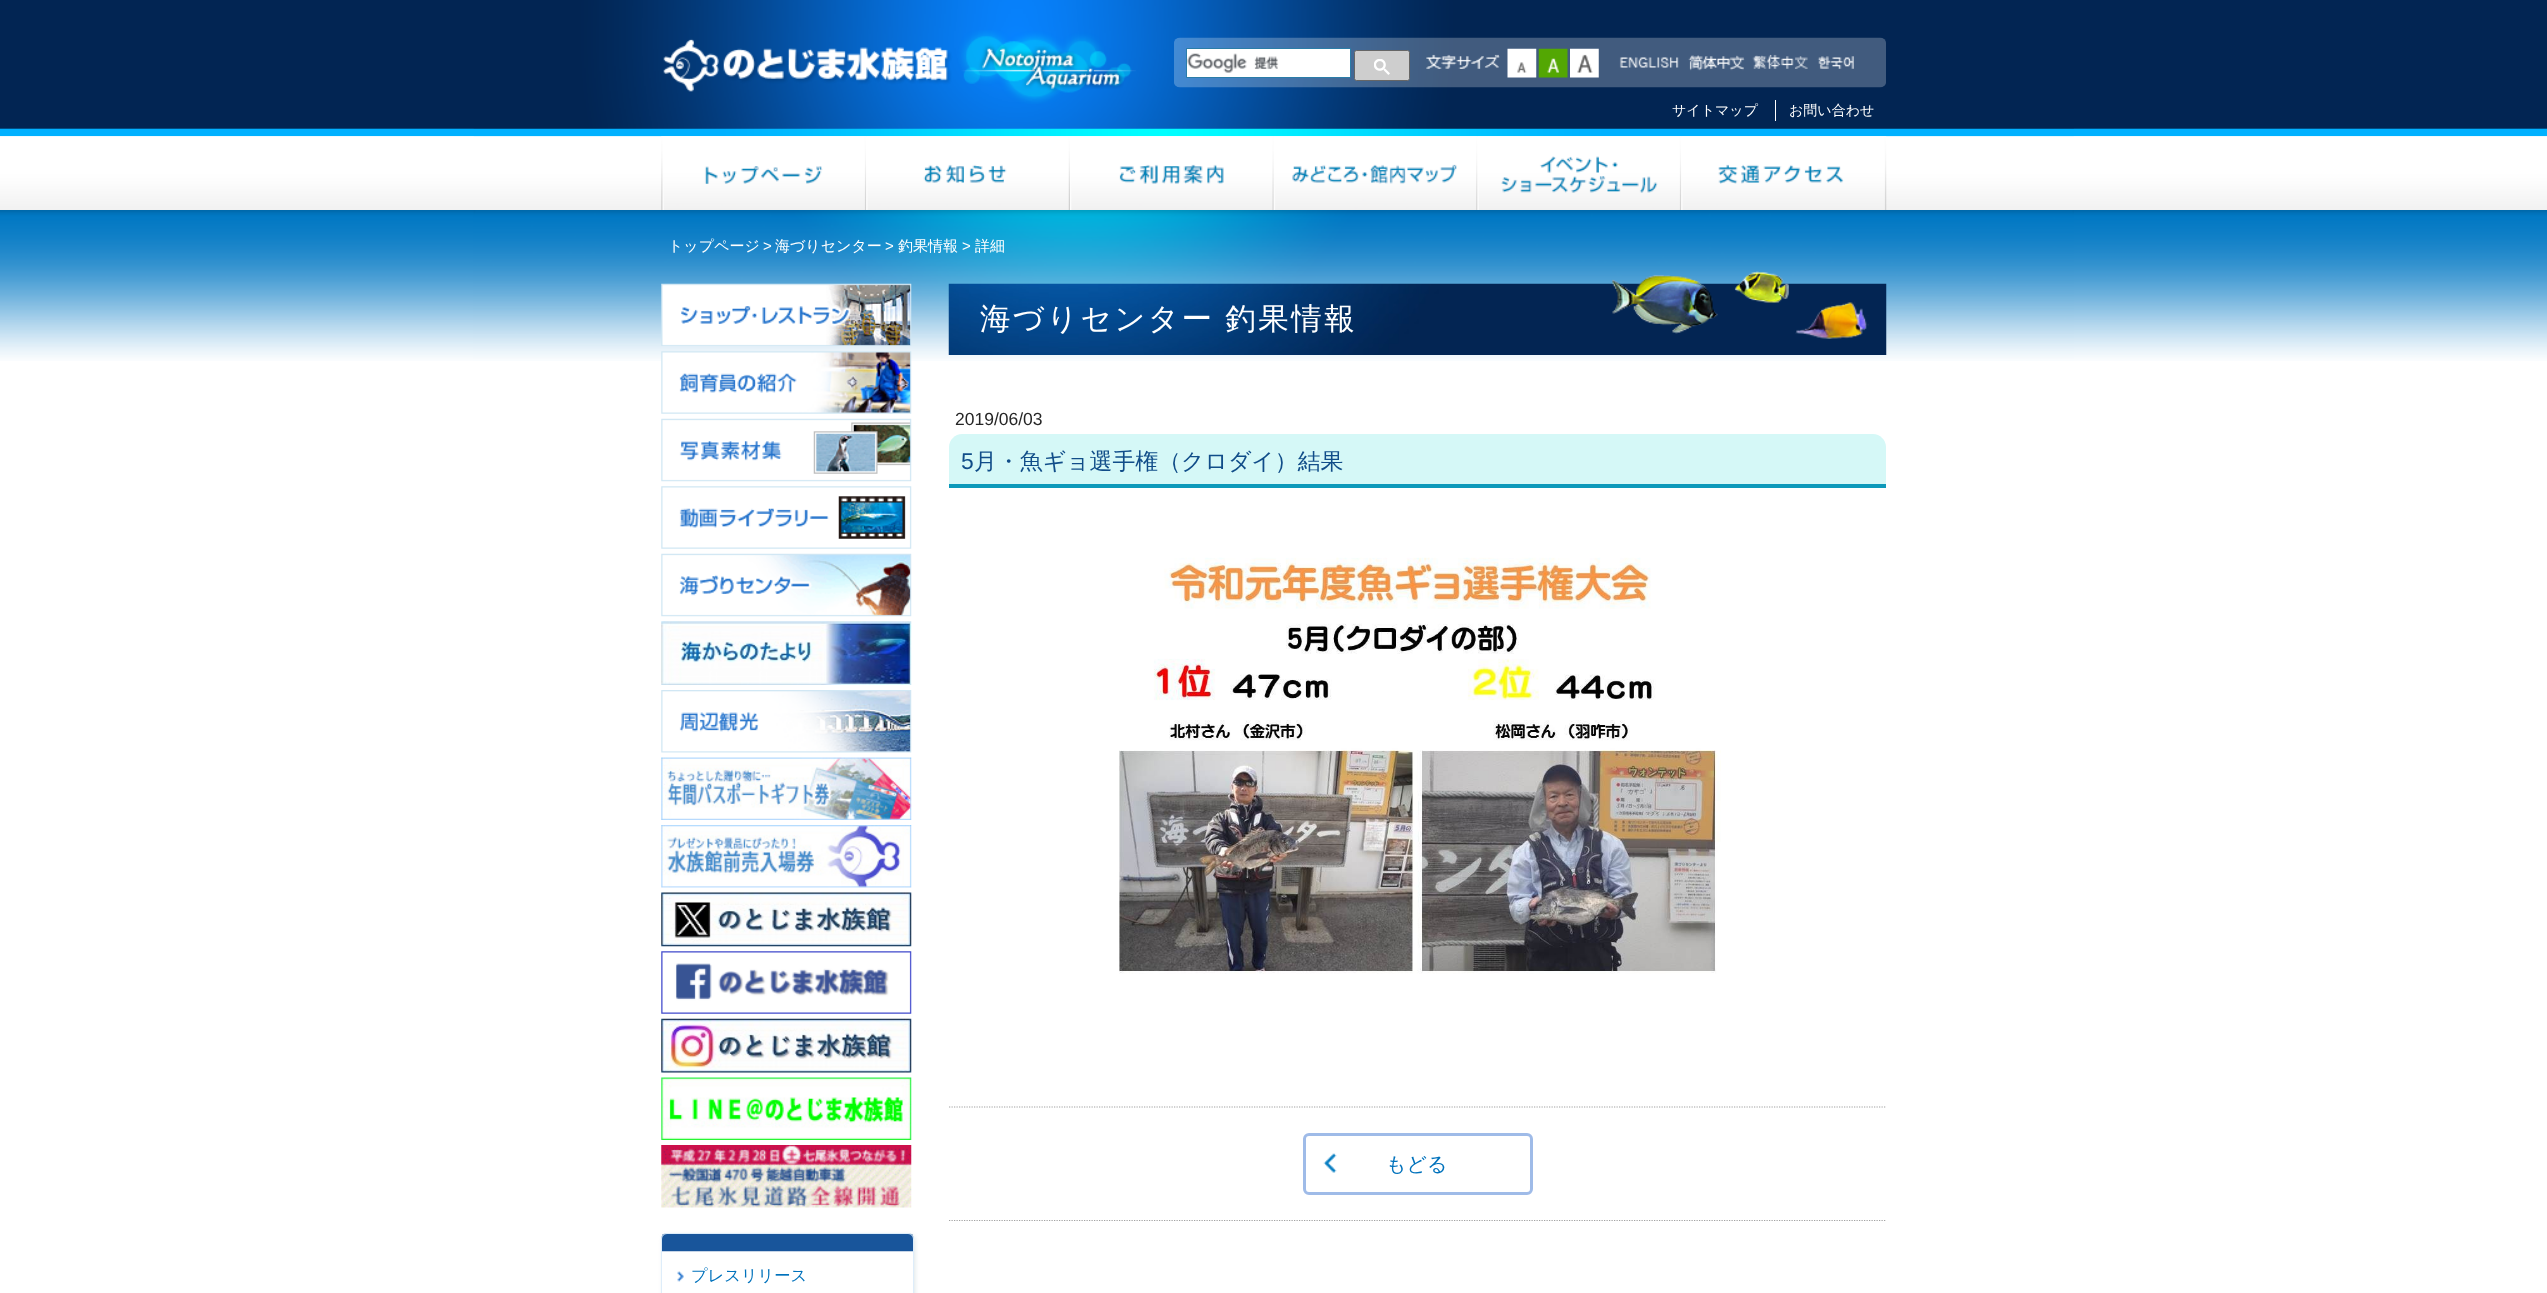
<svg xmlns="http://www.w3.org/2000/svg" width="2547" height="1293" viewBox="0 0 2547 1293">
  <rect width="100%" height="100%" fill="#fff"/>
  <image x="0" y="0" width="2547" height="137" href="img/1.png"/>
  <image x="663" y="30" width="473" height="74" href="img/2.png"/>
  <image x="1174" y="37" width="712" height="51" href="img/3.png"/>
  <path d="M1187 49h163v28H1187z" fill="#fff"/>
  <image x="1187" y="53" width="92" height="20" href="img/4.png"/>
  <path d="M1186.5 48.5h164v29H1186.5z" fill="none" stroke="#2b7da8"/>
  <rect x="1354.5" y="50.5" width="55" height="30" rx="2" fill="#cecece" stroke="#666"/>
  <image x="1374" y="59" width="16" height="16" href="img/5.png"/>
  <image x="1426" y="54" width="74" height="15" href="img/6.png"/>
  <image x="1507" y="48" width="30" height="30" href="img/7.png"/>
  <image x="1538" y="48" width="30" height="30" href="img/8.png"/>
  <image x="1570" y="48" width="29" height="30" href="img/9.png"/>
  <image x="1619" y="57" width="60" height="11" href="img/10.png"/>
  <image x="1688" y="55" width="57" height="16" href="img/11.png"/>
  <image x="1752" y="54" width="56" height="15" href="img/12.png"/>
  <image x="1817" y="56" width="37" height="13" href="img/13.png"/>
  <path d="M1775 100h1v21H1775z" fill="#fff"/>
  <image x="0" y="136" width="2547" height="74" href="img/14.png"/>
  <image x="661" y="136" width="206" height="74" href="img/15.png"/>
  <image x="866" y="136" width="204" height="74" href="img/16.png"/>
  <image x="1070" y="136" width="204" height="74" href="img/17.png"/>
  <image x="1273" y="136" width="205" height="74" href="img/18.png"/>
  <image x="1477" y="136" width="205" height="74" href="img/19.png"/>
  <image x="1681" y="136" width="206" height="74" href="img/20.png"/>
  <image x="0" y="210" width="2547" height="151" href="img/21.png"/>
  <image x="948" y="283" width="939" height="72" href="img/22.png"/>
  <image x="1611" y="271" width="258" height="68" href="img/23.png"/>
  <path d="M962 434H1873C1880 434 1886 440 1886 447V488H949V447C949 440 955 434 962 434Z" fill="#d5f8f7"/>
  <path d="M949 484h937v4H949z" fill="#0d99ba"/>
  <image x="1119" y="557" width="602" height="417" href="img/24.png"/>
  <path d="M949 1107H1886" fill="none" stroke="#a2a2a2" stroke-width="1.2" stroke-dasharray="1.25 1.25"/>
  <path d="M949 1220.5H1886" fill="none" stroke="#a2a2a2" stroke-width="1.2" stroke-dasharray="1.25 1.25"/>
  <image x="1323" y="1153" width="14" height="20" href="img/25.png"/>
  <rect x="1304.5" y="1134.5" width="227" height="59" rx="4.5" fill="none" stroke="#9fbbe8" stroke-width="3"/>
  <image x="661" y="283" width="251" height="63" href="img/26.png"/>
  <image x="661" y="351" width="251" height="63" href="img/27.png"/>
  <image x="661" y="418" width="251" height="64" href="img/28.png"/>
  <image x="661" y="486" width="251" height="63" href="img/29.png"/>
  <image x="661" y="553" width="251" height="64" href="img/30.png"/>
  <image x="661" y="621" width="251" height="64" href="img/31.png"/>
  <image x="661" y="690" width="251" height="63" href="img/32.png"/>
  <image x="661" y="757" width="251" height="63" href="img/33.png"/>
  <image x="661" y="825" width="251" height="63" href="img/34.png"/>
  <image x="661" y="892" width="251" height="55" href="img/35.png"/>
  <image x="661" y="951" width="251" height="63" href="img/36.png"/>
  <image x="661" y="1018" width="251" height="55" href="img/37.png"/>
  <image x="661" y="1077" width="251" height="63" href="img/38.png"/>
  <image x="661" y="1145" width="251" height="63" href="img/39.png"/>
  <rect x="663" y="1235" width="252" height="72" rx="6" fill="#dde6e8" filter="blur(2.5px)"/>
  <rect x="661" y="1233" width="253" height="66" rx="6" fill="#fff"/>
  <image x="661" y="1233" width="253" height="19" href="img/40.png"/>
  <rect x="661.5" y="1233.5" width="252" height="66" rx="5.5" fill="none" stroke="#deedfa"/>
  <image x="677" y="1271" width="7" height="11" href="img/41.png"/>
  <g font-family="WenQuanYi Zen Hei" font-size="14" font-weight="500" fill="#fff">
    <text x="1672" y="115">サイトマップ</text>
    <text x="1789" y="115">お問い合わせ</text>
  </g>
  <text x="668" y="251" font-family="WenQuanYi Zen Hei" font-size="15" font-weight="500" fill="#fff">トップページ</text>
  <text x="763" y="251" font-family="Liberation Sans" font-size="15" fill="#fff">&gt;</text>
  <text x="775" y="251" font-family="WenQuanYi Zen Hei" font-size="15" font-weight="500" fill="#fff">海づりセンター</text>
  <text x="885" y="251" font-family="Liberation Sans" font-size="15" fill="#fff">&gt;</text>
  <text x="898" y="251" font-family="WenQuanYi Zen Hei" font-size="15" font-weight="500" fill="#fff">釣果情報</text>
  <text x="962" y="251" font-family="Liberation Sans" font-size="15" fill="#fff">&gt;</text>
  <text x="975" y="251" font-family="WenQuanYi Zen Hei" font-size="15" font-weight="500" fill="#fff">詳細</text>
  <text x="980" y="329" word-spacing="-1" font-family="WenQuanYi Zen Hei" font-size="30.5" font-weight="500" letter-spacing="2.5" fill="#fff">海づりセンター 釣果情報</text>
  <text x="955" y="425" font-family="Liberation Sans" font-size="17.5" fill="#262626">2019/06/03</text>
  <text x="961" y="469" font-family="Liberation Sans" font-size="22.9" fill="#114d89">5</text>
  <text x="974" y="469" font-family="WenQuanYi Zen Hei" font-size="22.9" font-weight="500" fill="#114d89">月・魚ギョ選手権（クロダイ）結果</text>
  <text x="1386" y="1171" font-family="WenQuanYi Zen Hei" font-size="20" font-weight="500" fill="#0072bc">もどる</text>
  <text x="691" y="1281" font-family="WenQuanYi Zen Hei" font-size="16.25" font-weight="500" fill="#0072bc">プレスリリース</text>
</svg>
